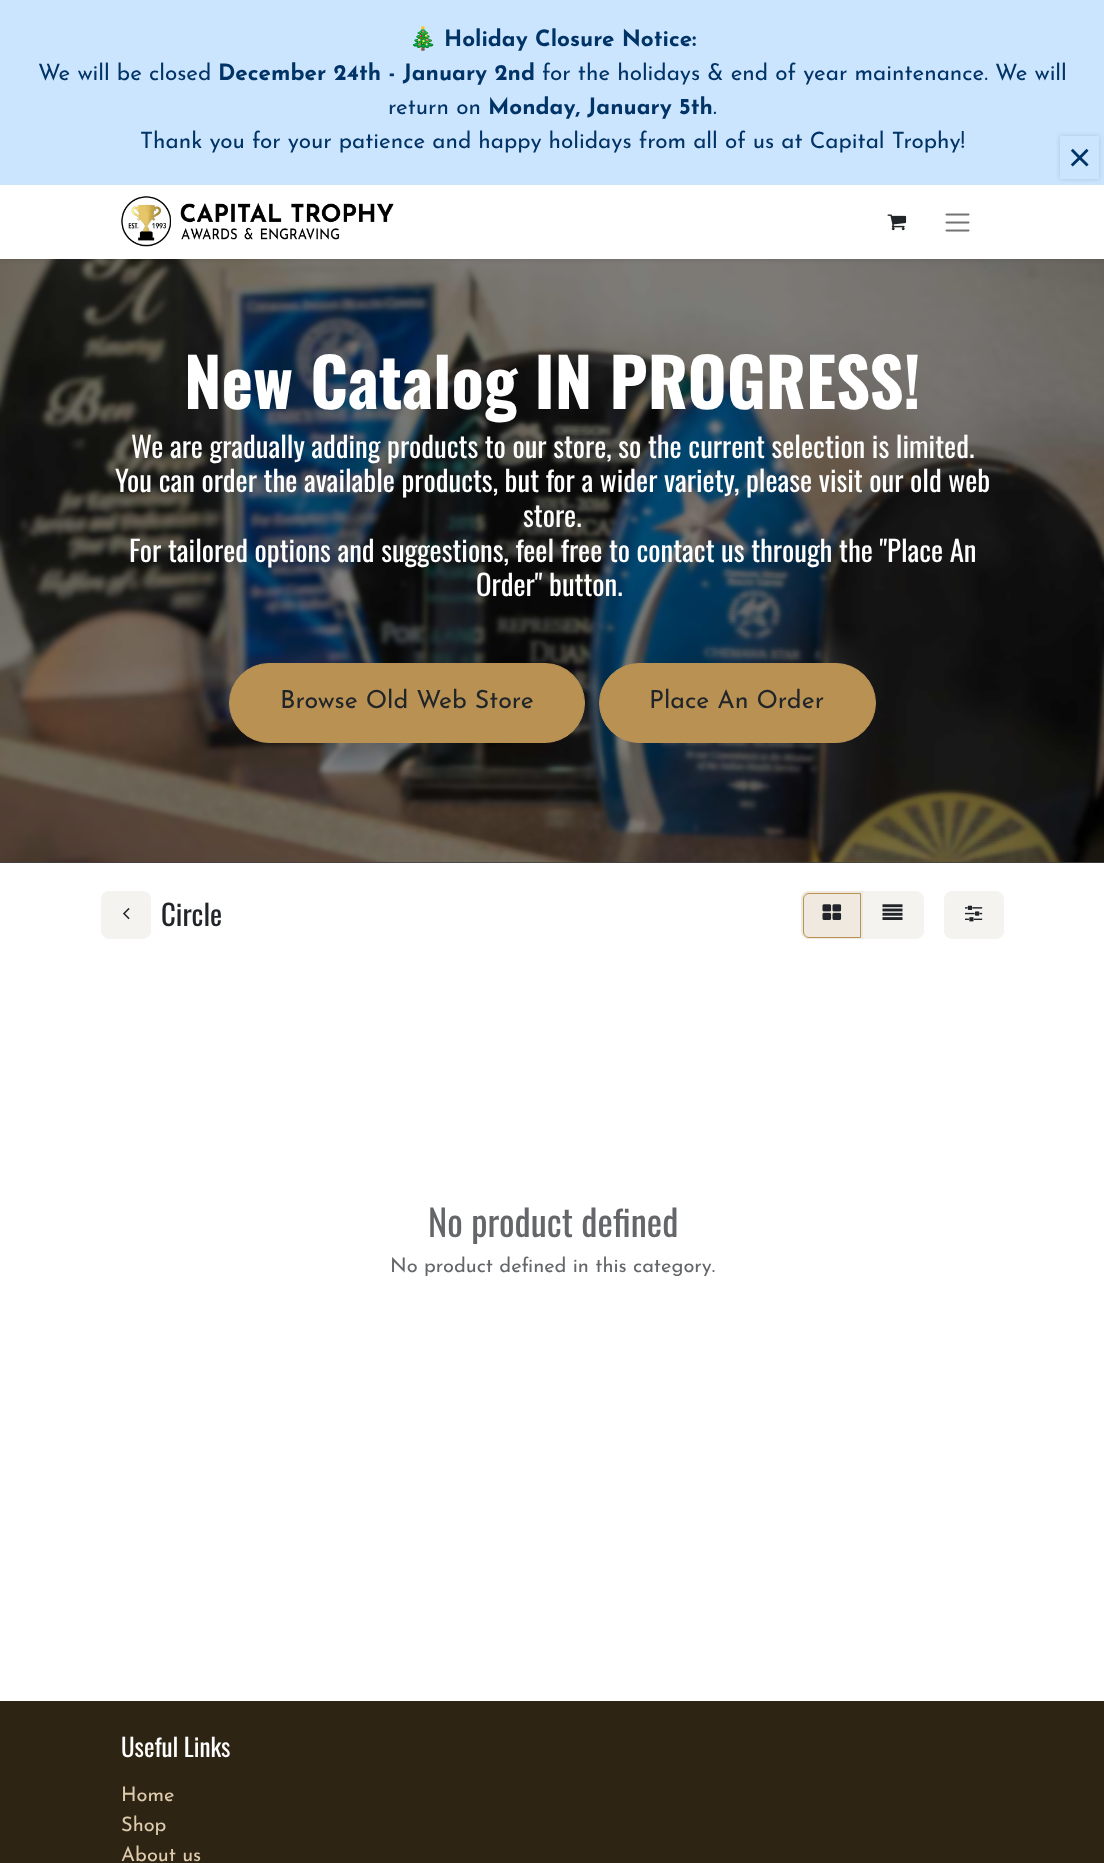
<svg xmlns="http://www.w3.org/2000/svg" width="1104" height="1863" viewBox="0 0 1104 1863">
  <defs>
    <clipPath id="clip1"><path d="M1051 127H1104V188H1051ZM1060 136H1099V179H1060Z" clip-rule="evenodd"/></clipPath>
  </defs>
  <rect width="100%" height="100%" fill="#fff"/>
  <path d="M0 862h1104v1H0z" fill="#404040"/>
  <image x="0" y="259" width="1104" height="604" href="img/4.png"/>
  <path d="M0 186h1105v74H0z" fill="#0000001a" filter="blur(2px)"/>
  <path d="M0 0h1104v185H0z" fill="#cce5ff"/>
  <path d="M0 185h1104v74H0z" fill="#fff"/>
  <g clip-path="url(#clip1)">
    <path d="M1060 136h39v43H1060z" fill="#00000026" filter="blur(2.5px)"/>
  </g>
  <image x="121" y="196" width="273" height="51" href="img/1.png"/>
  <image x="887" y="214" width="20" height="17" href="img/2.png"/>
  <image x="945" y="213" width="25" height="19" href="img/3.png"/>
  <rect x="229.5" y="663.5" width="355" height="79" rx="39.5" fill="#b99253" stroke="#b99253"/>
  <rect x="599.5" y="663.5" width="276" height="79" rx="39.5" fill="#b99253" stroke="#b99253"/>
  <rect x="101.5" y="891.5" width="49" height="47" rx="7.5" fill="#f5f3f0" stroke="#f5f3f0"/>
  <image x="123" y="908" width="7" height="12" href="img/5.png"/>
  <path d="M861.5 891.5H916C920 891.5 923.5 895 923.5 899V931C923.5 935 920 938.5 916 938.5H861.5Z" fill="#f5f3f0" stroke="#f5f3f0"/>
  <path d="M809 891H863V939H809C804.5 939 801 935.5 801 931V899C801 894.5 804.5 891 809 891Z" fill="#efe9e0"/>
  <path d="M809 893.5H860.5V937.5H809C806 937.5 803.5 935 803.5 932V899C803.5 896 806 893.5 809 893.5Z" fill="none" stroke="#b99253"/>
  <image x="822" y="904" width="20" height="16" href="img/6.png"/>
  <image x="882" y="904" width="21" height="16" href="img/7.png"/>
  <rect x="944.5" y="891.5" width="59" height="47" rx="7.5" fill="#f5f3f0" stroke="#f5f3f0"/>
  <image x="965" y="905" width="18" height="17" href="img/8.png"/>
  <path d="M0 1701h1104v162H0z" fill="#2e2414"/>
  <text x="409" y="46" font-family="Noto Color Emoji" font-size="22.5" font-weight="bold" fill="#036">🎄</text>
  <text x="444" y="46" font-family="Josefin Sans" font-size="22.5" font-weight="bold" fill="#036">Holiday Closure Notice:</text>
  <text x="38" y="80" font-family="Josefin Sans" font-size="22.5" fill="#036">We will be closed</text>
  <text x="218" y="80" font-family="Josefin Sans" font-size="22.5" font-weight="bold" fill="#036">December 24th - January 2nd</text>
  <g font-family="Josefin Sans" font-size="22.5" fill="#036">
    <text x="542" y="80">for the holidays &amp; end of year maintenance. We will</text>
    <text x="388" y="114">return on</text>
  </g>
  <text x="488" y="114" font-family="Josefin Sans" font-size="22.5" font-weight="bold" fill="#036">Monday, January 5th</text>
  <g font-family="Josefin Sans" font-size="22.5" fill="#036">
    <text x="713" y="114">.</text>
    <text x="140" y="148">Thank you for your patience and happy holidays from all of us at Capital Trophy!</text>
  </g>
  <text x="1068" y="171" font-family="Liberation Sans" font-size="40" fill="#036">×</text>
  <text x="184" y="409" font-family="Oswald" font-size="67" font-weight="bold" fill="#fff">New Catalog IN PROGRESS!</text>
  <g font-family="Oswald" font-size="28.8" fill="#fff">
    <text x="131" y="458">We are gradually adding products to our store, so the current selection is limited.</text>
    <text x="115" y="492">You can order the available products, but for a wider variety, please visit our old web</text>
    <text x="523" y="527">store.</text>
    <text x="129" y="562">For tailored options and suggestions, feel free to contact us through the "Place An</text>
    <text x="476" y="596">Order" button.</text>
  </g>
  <g font-family="Josefin Sans" font-size="25" fill="#212529">
    <text x="280" y="708">Browse Old Web Store</text>
    <text x="649" y="708">Place An Order</text>
  </g>
  <text x="161" y="926" font-family="Oswald" font-size="28.8" fill="#212529">Circle</text>
  <text x="428" y="1237" font-family="Oswald" font-size="36.5" fill="#646669">No product defined</text>
  <text x="390" y="1272" font-family="Josefin Sans" font-size="20" fill="#646669">No product defined in this category.</text>
  <text x="121" y="1757" font-family="Oswald" font-size="25" fill="#fff">Useful Links</text>
  <g font-family="Josefin Sans" font-size="20" fill="#decbae">
    <text x="121" y="1801">Home</text>
    <text x="121" y="1831">Shop</text>
    <text x="121" y="1861">About us</text>
  </g>
</svg>
